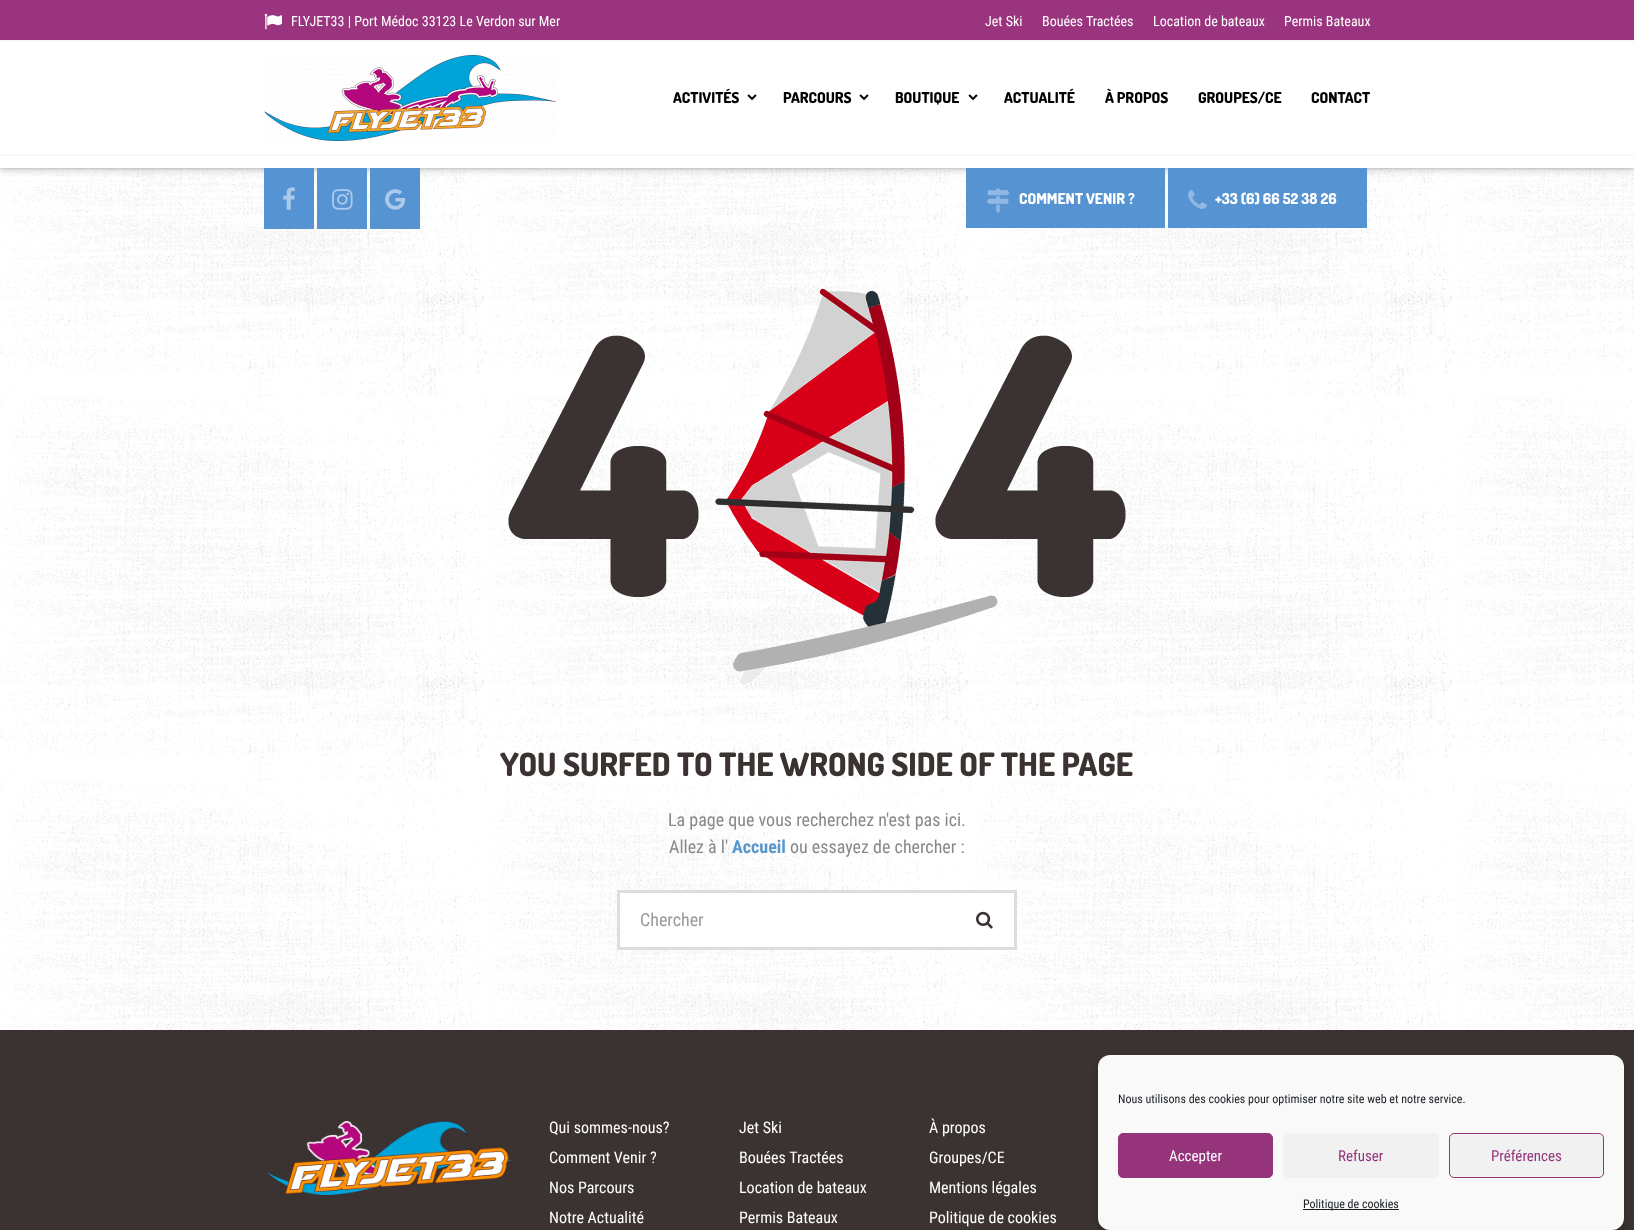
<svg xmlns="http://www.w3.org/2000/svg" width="1634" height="1230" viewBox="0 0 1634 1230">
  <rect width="100%" height="100%" fill="#fff"/>
  <image x="0" y="168" width="1634" height="862" href="img/1.png"/>
  <path d="M0 43h1634v128H0z" fill="#00000026" filter="blur(3.5px)"/>
  <path d="M0 39h1634v128H0z" fill="#00000059" filter="blur(2px)"/>
  <path d="M0 0h1634v40H0z" fill="#9b347e"/>
  <image x="264" y="13" width="18" height="17" href="img/2.png"/>
  <path d="M0 42h1634v126H0z" fill="#fff"/>
  <path d="M0 40h1634v2H0z" fill="#f7f7f7"/>
  <image x="264" y="55" width="292" height="86" href="img/3.png"/>
  <image x="747" y="94" width="10" height="7" href="img/4.png"/>
  <image x="859" y="94" width="10" height="7" href="img/4.png"/>
  <image x="968" y="94" width="10" height="7" href="img/4.png"/>
  <path d="M264 168h50v61H264z" fill="#5693d3"/>
  <image x="283" y="187" width="12" height="23" href="img/5.png"/>
  <path d="M317 168h50v61H317z" fill="#5693d3"/>
  <image x="332" y="189" width="21" height="21" href="img/6.png"/>
  <path d="M370 168h50v61H370z" fill="#5693d3"/>
  <image x="385" y="189" width="21" height="21" href="img/7.png"/>
  <path d="M966 168h199v60H966z" fill="#5693d3"/>
  <image x="986" y="188" width="24" height="25" href="img/8.png"/>
  <path d="M1168 168h199v60H1168z" fill="#5693d3"/>
  <image x="1188" y="190" width="19" height="19" href="img/9.png"/>
  <path d="M0 154h1634v2H0z" fill="#f7f7f7"/>
  <image x="508" y="288" width="618" height="397" href="img/10.png"/>
  <path d="M618.5 891.5h397v57H618.5z" fill="#fff" stroke="#ddd" stroke-width="3"/>
  <image x="976" y="911" width="17" height="18" href="img/11.png"/>
  <path d="M0 1030h1634v200H0z" fill="#3b3331"/>
  <image x="264" y="1121" width="251" height="74" href="img/12.png"/>
  <rect x="1098" y="1061" width="526" height="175" rx="12" fill="#0000003b" filter="blur(3px)"/>
  <rect x="1098" y="1055" width="526" height="175" rx="12" fill="#f9f9f9"/>
  <rect x="1118.5" y="1133.5" width="154" height="44" rx="4.5" fill="#95347b" stroke="#95347b"/>
  <rect x="1283" y="1133" width="156" height="45" rx="5" fill="#f1f1f1"/>
  <rect x="1449.5" y="1133.5" width="154" height="44" rx="4.5" fill="#f1f1f1" stroke="#95347b"/>
  <path d="M1303 1209h96v1H1303z" fill="#191e23"/>
  <g font-family="Roboto Condensed" font-size="14" fill="#fff">
    <text x="291" y="26">FLYJET33 | Port Médoc 33123 Le Verdon sur Mer</text>
    <text x="985" y="26">Jet Ski</text>
    <text x="1042" y="26">Bouées Tractées</text>
    <text x="1153" y="26">Location de bateaux</text>
    <text x="1284" y="26">Permis Bateaux</text>
  </g>
  <g font-family="Dosis" font-size="15" font-weight="800" fill="#000">
    <text x="673" y="103">ACTIVITÉS</text>
    <text x="783" y="103">PARCOURS</text>
    <text x="895" y="103">BOUTIQUE</text>
    <text x="1004" y="103">ACTUALITÉ</text>
    <text x="1105" y="103">À PROPOS</text>
    <text x="1198" y="103">GROUPES/CE</text>
    <text x="1311" y="103">CONTACT</text>
  </g>
  <g font-family="Dosis" font-size="15" font-weight="800" fill="#fff">
    <text x="1019" y="204">COMMENT VENIR ?</text>
    <text x="1215" y="204">+33 (6) 66 52 38 26</text>
  </g>
  <text x="500" y="776" font-family="Dosis" font-size="32" font-weight="800" fill="#3b3331">YOU SURFED TO THE WRONG SIDE OF THE PAGE</text>
  <g font-family="Roboto Condensed" font-size="18" fill="#888">
    <text x="668" y="826">La page que vous recherchez n'est pas ici.</text>
    <text x="669" y="853">Allez à l'</text>
  </g>
  <text x="732" y="853" font-family="Roboto Condensed" font-size="18" font-weight="bold" fill="#5897cc">Accueil</text>
  <text x="790" y="853" font-family="Roboto Condensed" font-size="18" fill="#888">ou essayez de chercher :</text>
  <text x="640" y="926" font-family="Roboto Condensed" font-size="18" fill="#999">Chercher</text>
  <g font-family="Roboto Condensed" font-size="16" fill="#fff">
    <text x="549" y="1133">Qui sommes-nous?</text>
    <text x="549" y="1163">Comment Venir ?</text>
    <text x="549" y="1193">Nos Parcours</text>
    <text x="549" y="1223">Notre Actualité</text>
    <text x="739" y="1133">Jet Ski</text>
    <text x="739" y="1163">Bouées Tractées</text>
    <text x="739" y="1193">Location de bateaux</text>
    <text x="739" y="1223">Permis Bateaux</text>
    <text x="929" y="1133">À propos</text>
    <text x="929" y="1163">Groupes/CE</text>
    <text x="929" y="1193">Mentions légales</text>
    <text x="929" y="1223">Politique de cookies</text>
  </g>
  <text x="1118" y="1103" font-family="Roboto Condensed" font-size="12" fill="#191e23">Nous utilisons des cookies pour optimiser notre site web et notre service.</text>
  <text x="1169" y="1161" font-family="Roboto Condensed" font-size="15" fill="#fff">Accepter</text>
  <g font-family="Roboto Condensed" font-size="15" fill="#95347b">
    <text x="1338" y="1161">Refuser</text>
    <text x="1491" y="1161">Préférences</text>
  </g>
  <text x="1303" y="1208" font-family="Roboto Condensed" font-size="12" fill="#191e23">Politique de cookies</text>
</svg>
